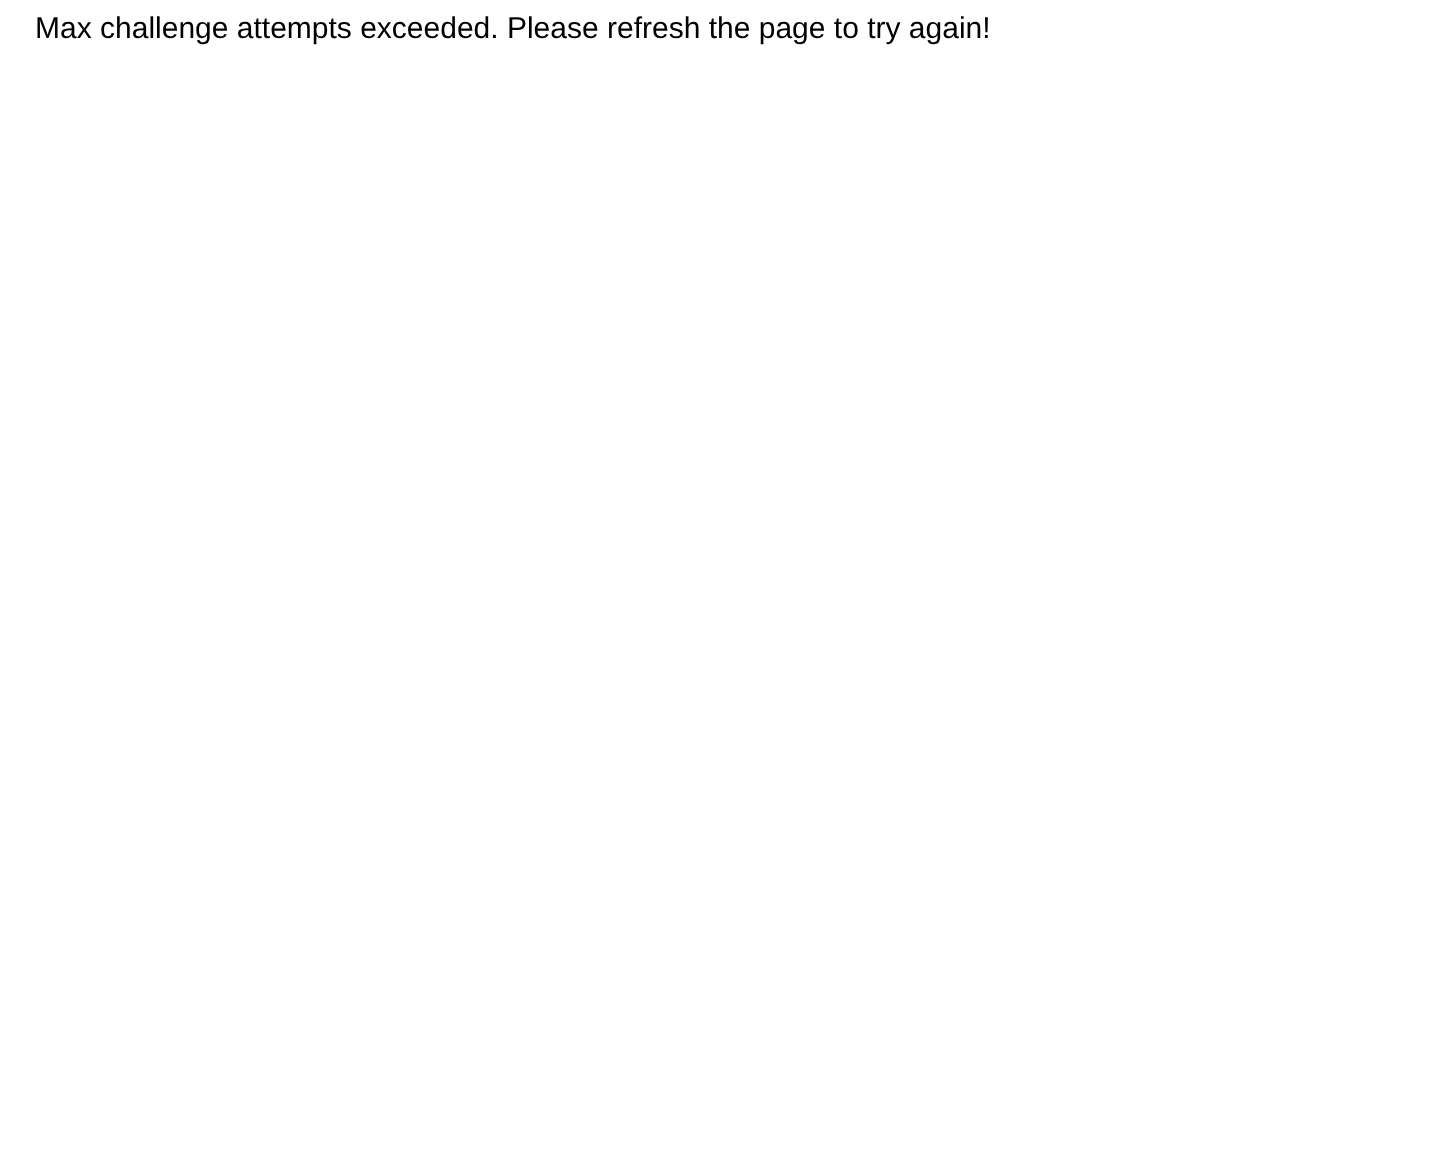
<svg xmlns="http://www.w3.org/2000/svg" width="1452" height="1176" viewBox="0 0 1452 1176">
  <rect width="100%" height="100%" fill="#fff"/>
  <text x="35" y="38" font-family="Liberation Sans" font-size="30" fill="#000">Max challenge attempts exceeded. Please refresh the page to try again!</text>
</svg>
